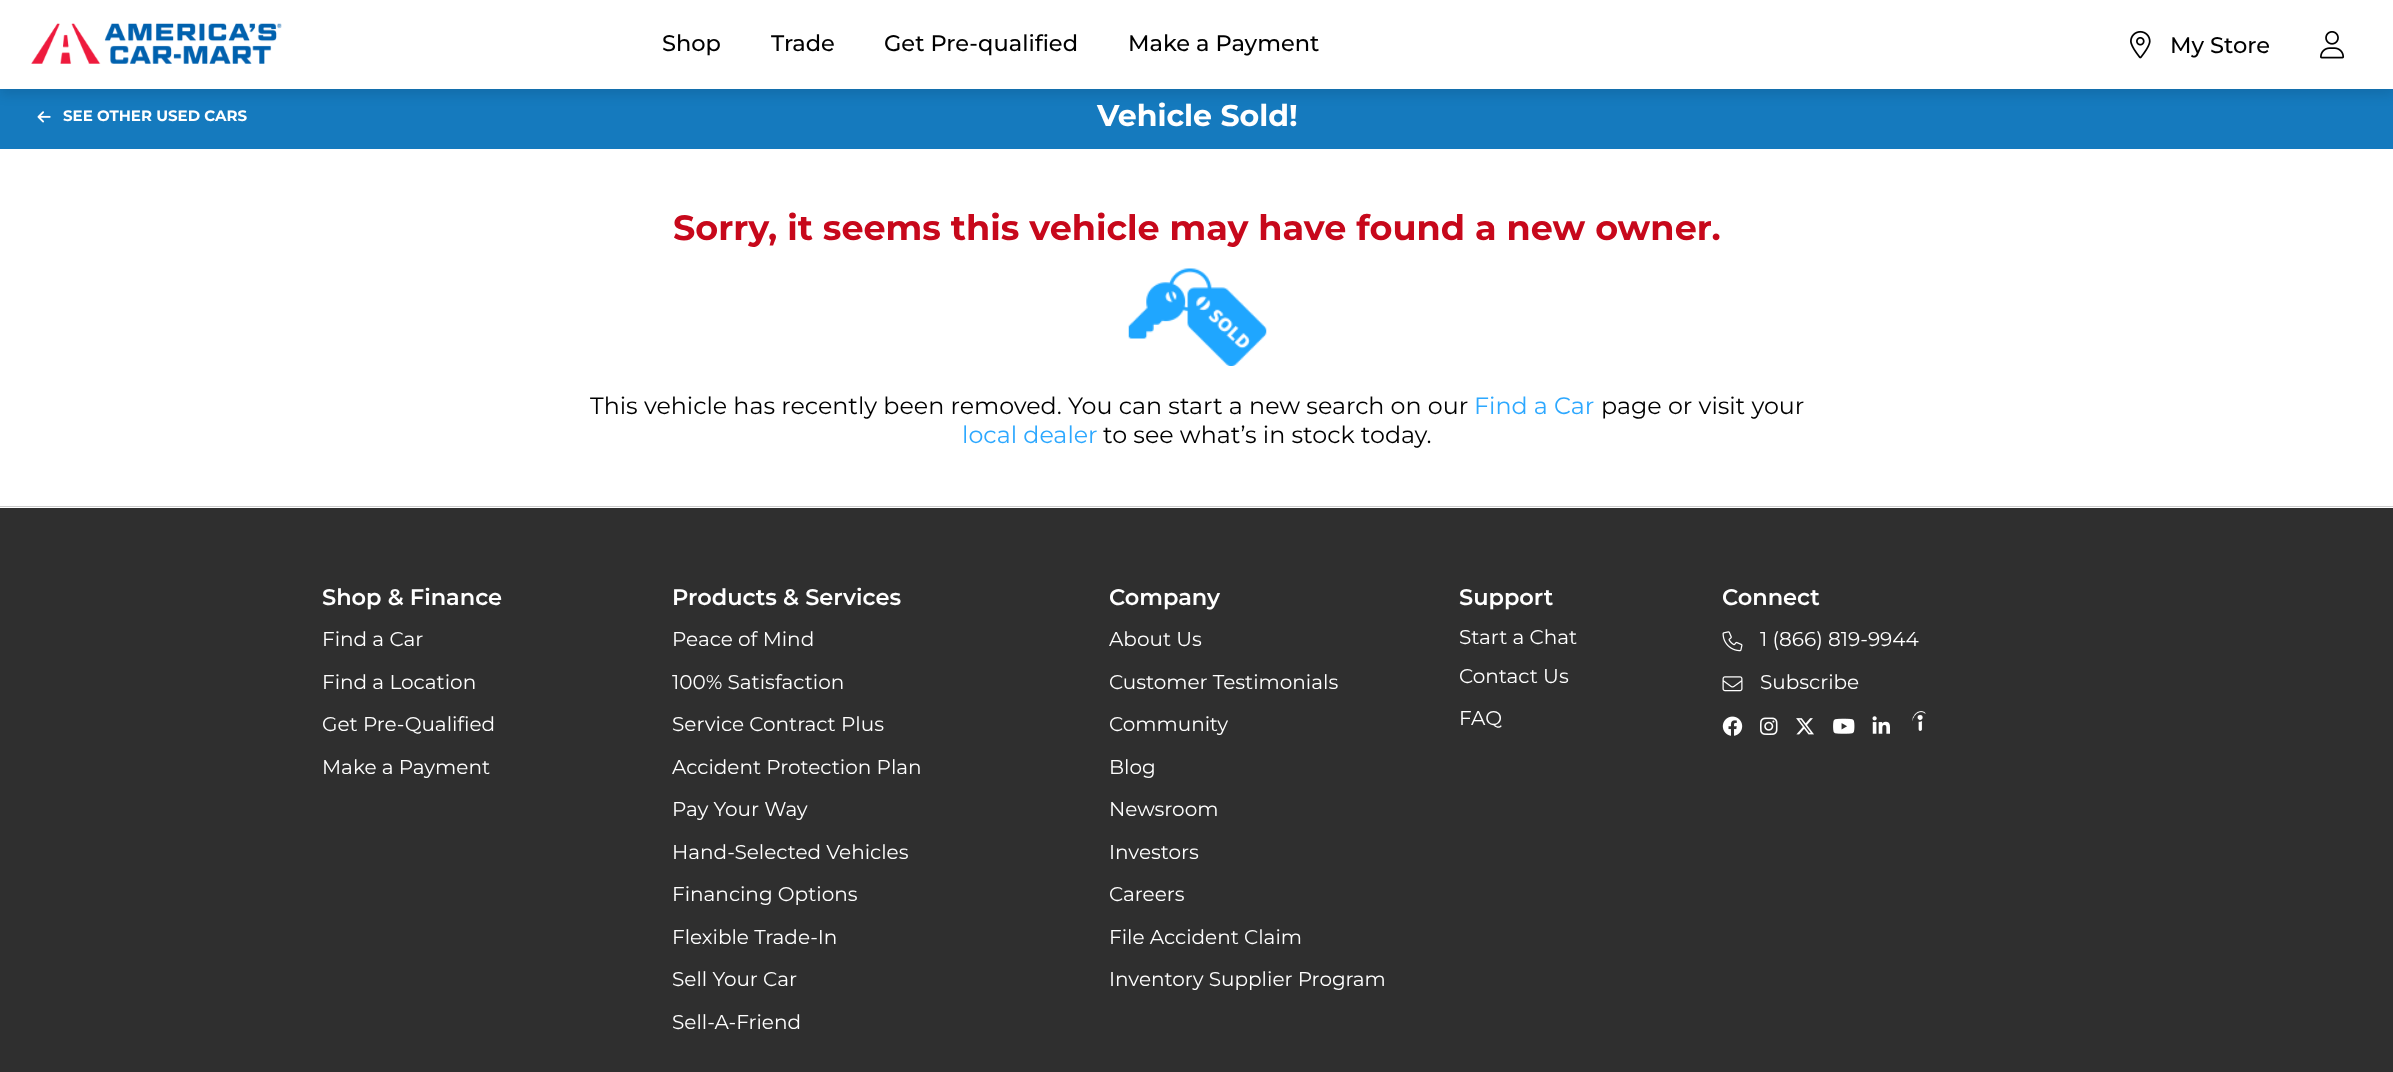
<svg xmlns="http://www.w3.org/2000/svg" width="2393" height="1072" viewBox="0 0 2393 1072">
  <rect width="100%" height="100%" fill="#fff"/>
  <path d="M0 89h2393v60H0z" fill="#157abe"/>
  <image x="37" y="111" width="14" height="12" href="img/4.png"/>
  <path d="M0 6h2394v89H0z" fill="#0000001a" filter="blur(6px)"/>
  <path d="M0 0h2393v89H0z" fill="#fff"/>
  <image x="31" y="23" width="251" height="41" href="img/1.png"/>
  <image x="2130" y="30" width="21" height="29" href="img/2.png"/>
  <image x="2320" y="31" width="25" height="28" href="img/3.png"/>
  <path d="M0 506h2393v1H0z" fill="#ccc"/>
  <image x="1128" y="268" width="139" height="98" href="img/5.png"/>
  <path d="M0 508h2393v564H0z" fill="#2f2f2f"/>
  <image x="1722" y="631" width="21" height="21" href="img/6.png"/>
  <image x="1722" y="676" width="21" height="16" href="img/7.png"/>
  <image x="1722" y="716" width="21" height="20" href="img/8.png"/>
  <image x="1760" y="717" width="18" height="18" href="img/9.png"/>
  <image x="1796" y="718" width="18" height="17" href="img/10.png"/>
  <image x="1833" y="718" width="22" height="16" href="img/11.png"/>
  <image x="1872" y="716" width="18" height="18" href="img/12.png"/>
  <image x="1912" y="711" width="14" height="20" href="img/13.png"/>
  <g font-family="Montserrat" font-size="22.5" font-weight="500" fill="#000">
    <text x="662" y="51">Shop</text>
    <text x="771" y="51">Trade</text>
    <text x="884" y="51">Get Pre-qualified</text>
    <text x="1128" y="51">Make a Payment</text>
    <text x="2170" y="53">My Store</text>
  </g>
  <text x="63" y="121" font-family="Montserrat" font-size="15" font-weight="bold" fill="#fff">SEE OTHER USED CARS</text>
  <text x="1097" y="126" font-family="Montserrat" font-size="30" font-weight="bold" fill="#fff">Vehicle Sold!</text>
  <text x="673" y="240" font-family="Montserrat" font-size="35" font-weight="bold" fill="#c7081b">Sorry, it seems this vehicle may have found a new owner.</text>
  <text x="590" y="414" font-family="Montserrat" font-size="23.75" fill="#000">This vehicle has recently been removed. You can start a new search on our</text>
  <text x="1474" y="414" font-family="Montserrat" font-size="23.75" fill="#2da8ff">Find a Car</text>
  <text x="1601" y="414" font-family="Montserrat" font-size="23.75" fill="#000">page or visit your</text>
  <text x="962" y="443" font-family="Montserrat" font-size="23.75" fill="#2da8ff">local dealer</text>
  <text x="1103" y="443" font-family="Montserrat" font-size="23.75" fill="#000">to see what’s in stock today.</text>
  <text x="322" y="605" font-family="Montserrat" font-size="22.5" font-weight="600" fill="#fff">Shop &amp; Finance</text>
  <g font-family="Montserrat" font-size="20" fill="#fff">
    <text x="322" y="646">Find a Car</text>
    <text x="322" y="689">Find a Location</text>
    <text x="322" y="731">Get Pre-Qualified</text>
    <text x="322" y="774">Make a Payment</text>
  </g>
  <text x="672" y="605" font-family="Montserrat" font-size="22.5" font-weight="600" fill="#fff">Products &amp; Services</text>
  <g font-family="Montserrat" font-size="20" fill="#fff">
    <text x="672" y="646">Peace of Mind</text>
    <text x="672" y="689">100% Satisfaction</text>
    <text x="672" y="731">Service Contract Plus</text>
    <text x="672" y="774">Accident Protection Plan</text>
    <text x="672" y="816">Pay Your Way</text>
    <text x="672" y="859">Hand-Selected Vehicles</text>
    <text x="672" y="901">Financing Options</text>
    <text x="672" y="944">Flexible Trade-In</text>
    <text x="672" y="986">Sell Your Car</text>
    <text x="672" y="1029">Sell-A-Friend</text>
  </g>
  <text x="1109" y="605" font-family="Montserrat" font-size="22.5" font-weight="600" fill="#fff">Company</text>
  <g font-family="Montserrat" font-size="20" fill="#fff">
    <text x="1109" y="646">About Us</text>
    <text x="1109" y="689">Customer Testimonials</text>
    <text x="1109" y="731">Community</text>
    <text x="1109" y="774">Blog</text>
    <text x="1109" y="816">Newsroom</text>
    <text x="1109" y="859">Investors</text>
    <text x="1109" y="901">Careers</text>
    <text x="1109" y="944">File Accident Claim</text>
    <text x="1109" y="986">Inventory Supplier Program</text>
  </g>
  <text x="1459" y="605" font-family="Montserrat" font-size="22.5" font-weight="600" fill="#fff">Support</text>
  <g font-family="Montserrat" font-size="20" fill="#fff">
    <text x="1459" y="644">Start a Chat</text>
    <text x="1459" y="683">Contact Us</text>
    <text x="1459" y="725">FAQ</text>
  </g>
  <text x="1722" y="605" font-family="Montserrat" font-size="22.5" font-weight="600" fill="#fff">Connect</text>
  <g font-family="Montserrat" font-size="20" fill="#fff">
    <text x="1760" y="646">1 (866) 819-9944</text>
    <text x="1760" y="689">Subscribe</text>
  </g>
</svg>
